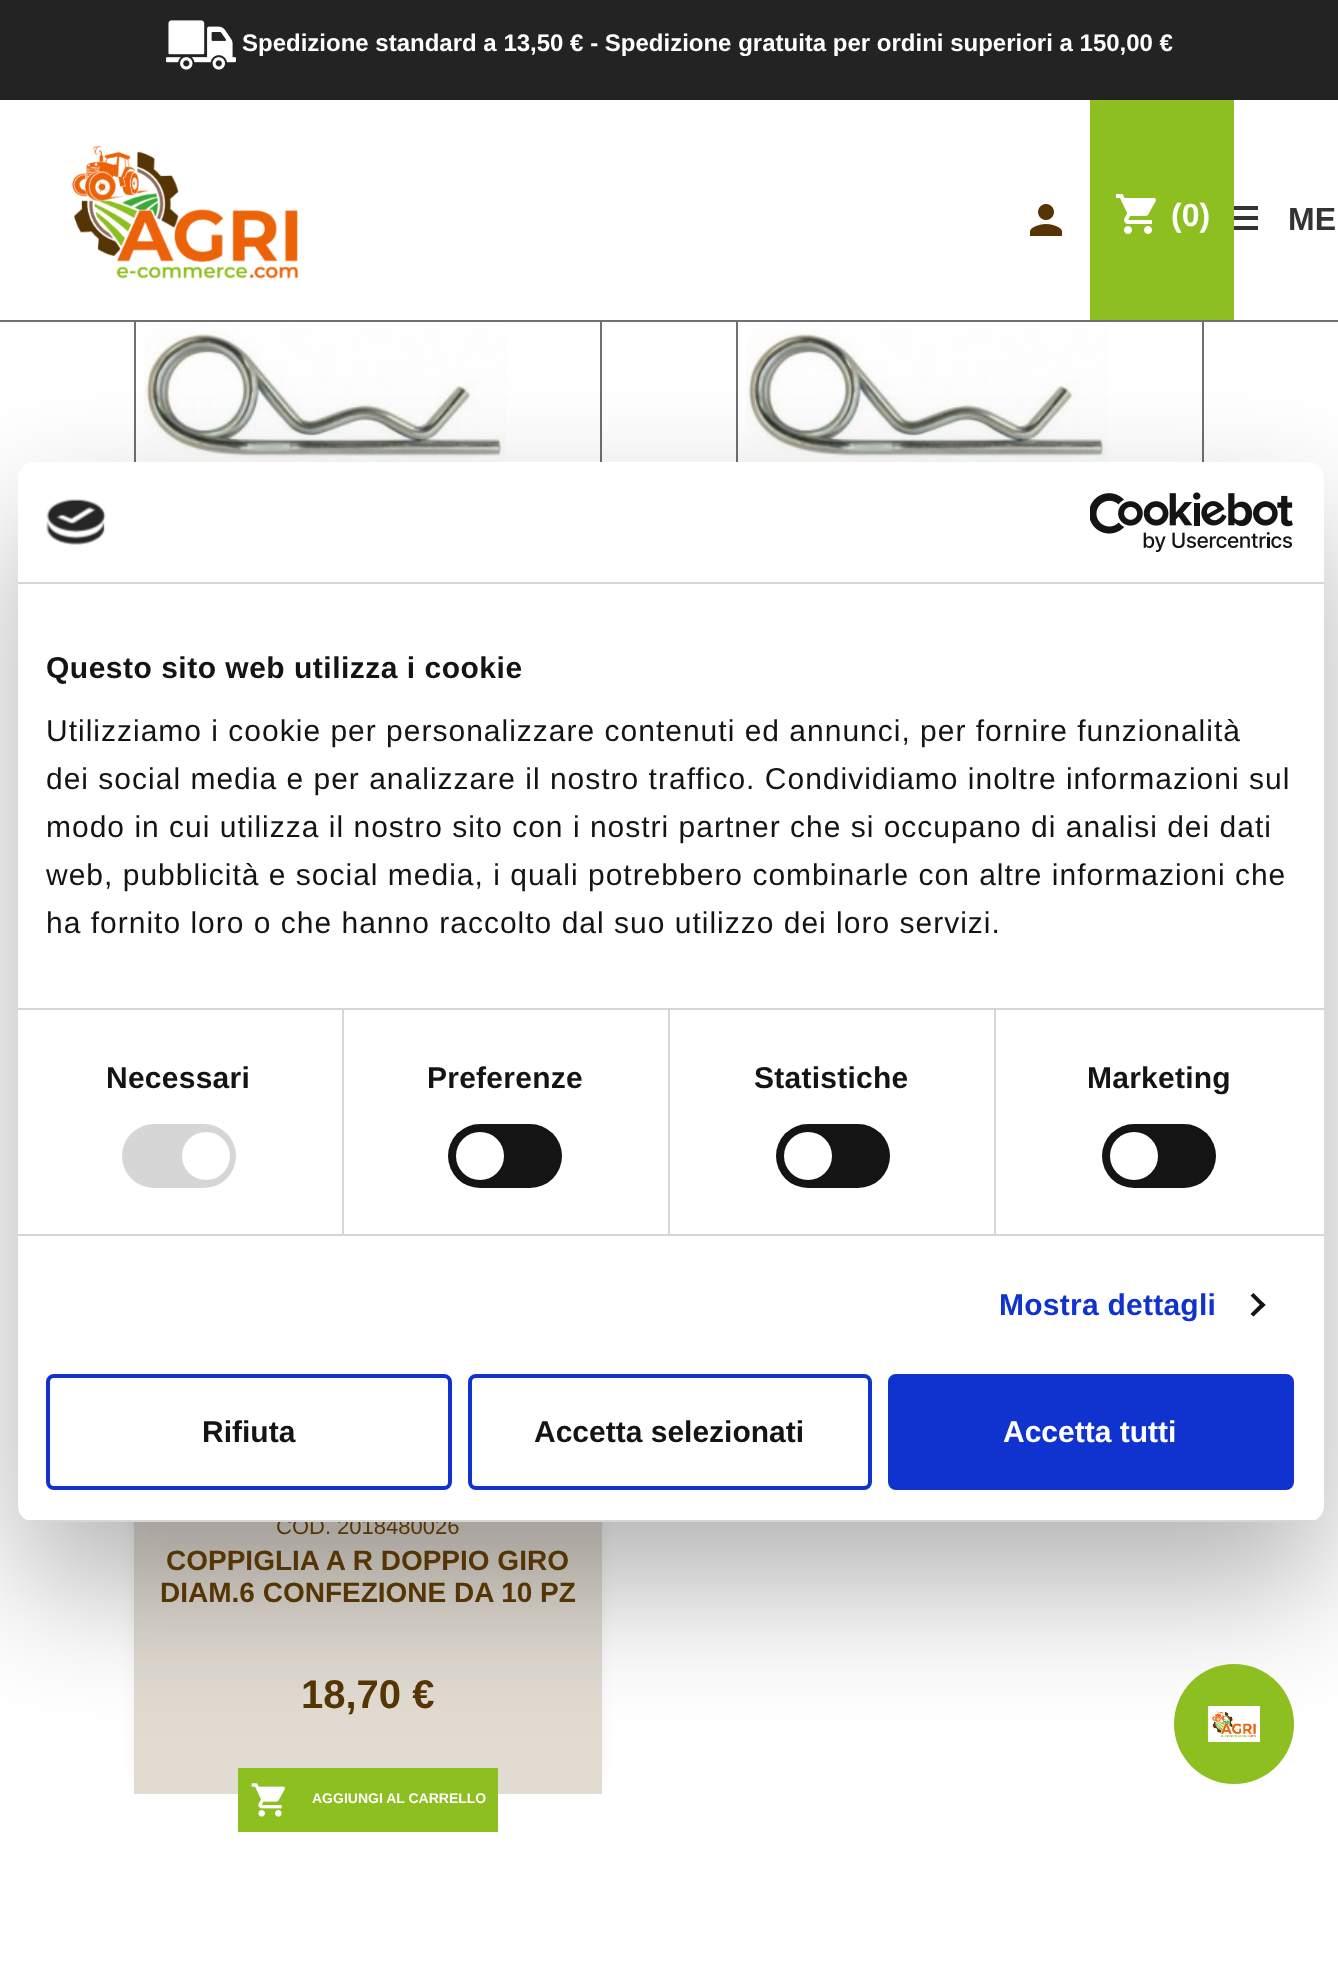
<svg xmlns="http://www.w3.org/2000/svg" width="1338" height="1983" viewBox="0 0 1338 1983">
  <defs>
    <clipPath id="clip1"><rect x="18" y="462" width="1306" height="1060" rx="16"/></clipPath>
  </defs>
  <rect width="100%" height="100%" fill="#fff"/>
  <path d="M0 0h1338v100H0z" fill="#232323"/>
  <image x="166" y="20" width="70" height="50" href="img/1.png"/>
  <path d="M135 225h466v398H135z" fill="none" stroke="#707070" stroke-width="2"/>
  <path d="M737 225h466v398H737z" fill="none" stroke="#707070" stroke-width="2"/>
  <path d="M134 224h1070v96H134z" fill="#fff"/>
  <path d="M0 320h1338v2H0z" fill="#707070"/>
  <image x="72" y="145" width="227" height="134" href="img/2.png"/>
  <image x="1029" y="204" width="34" height="32" href="img/3.png"/>
  <path d="M1090 100h144v220H1090z" fill="#8dbf20"/>
  <image x="1115" y="194" width="41" height="40" href="img/4.png"/>
  <path d="M1234 206h24v4H1234z" fill="#333"/>
  <path d="M1234 216h24v4H1234z" fill="#333"/>
  <path d="M1234 226h24v4H1234z" fill="#333"/>
  <image x="144" y="327" width="362" height="135" href="img/5.png"/>
  <image x="746" y="327" width="362" height="135" href="img/6.png"/>
  <path d="M144 1494h448v280H144z" fill="#00000033" filter="blur(10px)"/>
  <path d="M134 1522h468v272H134z" fill="#e1dbd2"/>
  <path d="M238 1768h260v64H238z" fill="#8dbf20"/>
  <image x="251" y="1783" width="34" height="34" href="img/7.png"/>
  <rect x="18" y="526" width="1306" height="1060" rx="16" fill="#0000004d" filter="blur(68px)"/>
  <image x="1174" y="1664" width="120" height="120" href="img/10.png"/>
  <text x="242" y="51" font-family="Liberation Sans" font-size="24" font-weight="bold" fill="#fff">Spedizione standard a 13,50 € - Spedizione gratuita per ordini superiori a 150,00 €</text>
  <text x="1171" y="226" font-family="Liberation Sans" font-size="32" font-weight="bold" fill="#fff">(0)</text>
  <text x="1288" y="230" font-family="Liberation Sans" font-size="32" font-weight="bold" fill="#333">ME</text>
  <text x="276" y="1534" font-family="Liberation Sans" font-size="22" fill="#553503">COD. 2018480026</text>
  <g font-family="Liberation Sans" font-size="28" font-weight="bold" fill="#553503">
    <text x="166" y="1570">COPPIGLIA A R DOPPIO GIRO</text>
    <text x="160" y="1602">DIAM.6 CONFEZIONE DA 10 PZ</text>
  </g>
  <text x="301" y="1708" font-family="Liberation Sans" font-size="40" font-weight="bold" fill="#553503">18,70 €</text>
  <text x="312" y="1803" font-family="Liberation Sans" font-size="14" font-weight="bold" fill="#fff">AGGIUNGI AL CARRELLO</text>
  <rect x="18" y="462" width="1306" height="1060" rx="16" fill="#fff"/>
  <path d="M18 582h1306v2H18z" fill="#d6d6d6"/>
  <image x="46" y="499" width="60" height="46" href="img/8.png"/>
  <image x="1090" y="492" width="203" height="60" href="img/9.png"/>
  <path d="M18 1008h1306v2H18z" fill="#d6d6d6"/>
  <text x="46" y="678" font-family="Liberation Sans" font-size="30" font-weight="bold" letter-spacing="0.5" fill="#141414">Questo sito web utilizza i cookie</text>
  <g font-family="Liberation Sans" font-size="30" letter-spacing="1" fill="#141414">
    <text x="46" y="741">Utilizziamo i cookie per personalizzare contenuti ed annunci, per fornire funzionalità</text>
    <text x="46" y="789">dei social media e per analizzare il nostro traffico. Condividiamo inoltre informazioni sul</text>
    <text x="46" y="837">modo in cui utilizza il nostro sito con i nostri partner che si occupano di analisi dei dati</text>
    <text x="46" y="885">web, pubblicità e social media, i quali potrebbero combinarle con altre informazioni che</text>
    <text x="46" y="933">ha fornito loro o che hanno raccolto dal suo utilizzo dei loro servizi.</text>
  </g>
  <path d="M18 1234h1306v2H18z" fill="#d6d6d6"/>
  <path d="M342 1010h2v224H342z" fill="#d6d6d6"/>
  <text x="106" y="1088" font-family="Liberation Sans" font-size="30" font-weight="bold" letter-spacing="0.25" fill="#141414">Necessari</text>
  <rect x="122" y="1124" width="114" height="64" rx="32" fill="#d6d6d6"/>
  <circle cx="206" cy="1156" r="24" fill="#fff"/>
  <path d="M668 1010h2v224H668z" fill="#d6d6d6"/>
  <text x="427" y="1088" font-family="Liberation Sans" font-size="30" font-weight="bold" letter-spacing="0.25" fill="#141414">Preferenze</text>
  <rect x="448" y="1124" width="114" height="64" rx="32" fill="#141414"/>
  <circle cx="480" cy="1156" r="24" fill="#fff"/>
  <path d="M994 1010h2v224H994z" fill="#d6d6d6"/>
  <text x="754" y="1088" font-family="Liberation Sans" font-size="30" font-weight="bold" letter-spacing="0.25" fill="#141414">Statistiche</text>
  <rect x="776" y="1124" width="114" height="64" rx="32" fill="#141414"/>
  <circle cx="808" cy="1156" r="24" fill="#fff"/>
  <text x="1087" y="1088" font-family="Liberation Sans" font-size="30" font-weight="bold" letter-spacing="0.25" fill="#141414">Marketing</text>
  <rect x="1102" y="1124" width="114" height="64" rx="32" fill="#141414"/>
  <circle cx="1134" cy="1156" r="24" fill="#fff"/>
  <text x="999" y="1315" font-family="Liberation Sans" font-size="30" font-weight="bold" letter-spacing="0.25" fill="#1032cf">Mostra dettagli</text>
  <path d="M1253.5 1293L1265.5 1305L1262.5 1307.5L1250.5 1295.5Z" fill="#141414"/>
  <path d="M1262.5 1302L1265.5 1305L1253.5 1316.5L1250.5 1314Z" fill="#141414"/>
  <g clip-path="url(#clip1)">
    <path d="M18 1520h1306v2H18z" fill="#d6d6d6"/>
  </g>
  <rect x="48" y="1376" width="402" height="112" rx="6" fill="none" stroke="#1032cf" stroke-width="4"/>
  <text x="202" y="1442" font-family="Liberation Sans" font-size="30" font-weight="bold" fill="#141414">Rifiuta</text>
  <rect x="470" y="1376" width="400" height="112" rx="6" fill="none" stroke="#1032cf" stroke-width="4"/>
  <text x="534" y="1442" font-family="Liberation Sans" font-size="30" font-weight="bold" fill="#141414">Accetta selezionati</text>
  <rect x="890" y="1376" width="402" height="112" rx="6" fill="#1032cf" stroke="#1032cf" stroke-width="4"/>
  <text x="1003" y="1442" font-family="Liberation Sans" font-size="30" font-weight="bold" fill="#fff">Accetta tutti</text>
</svg>
